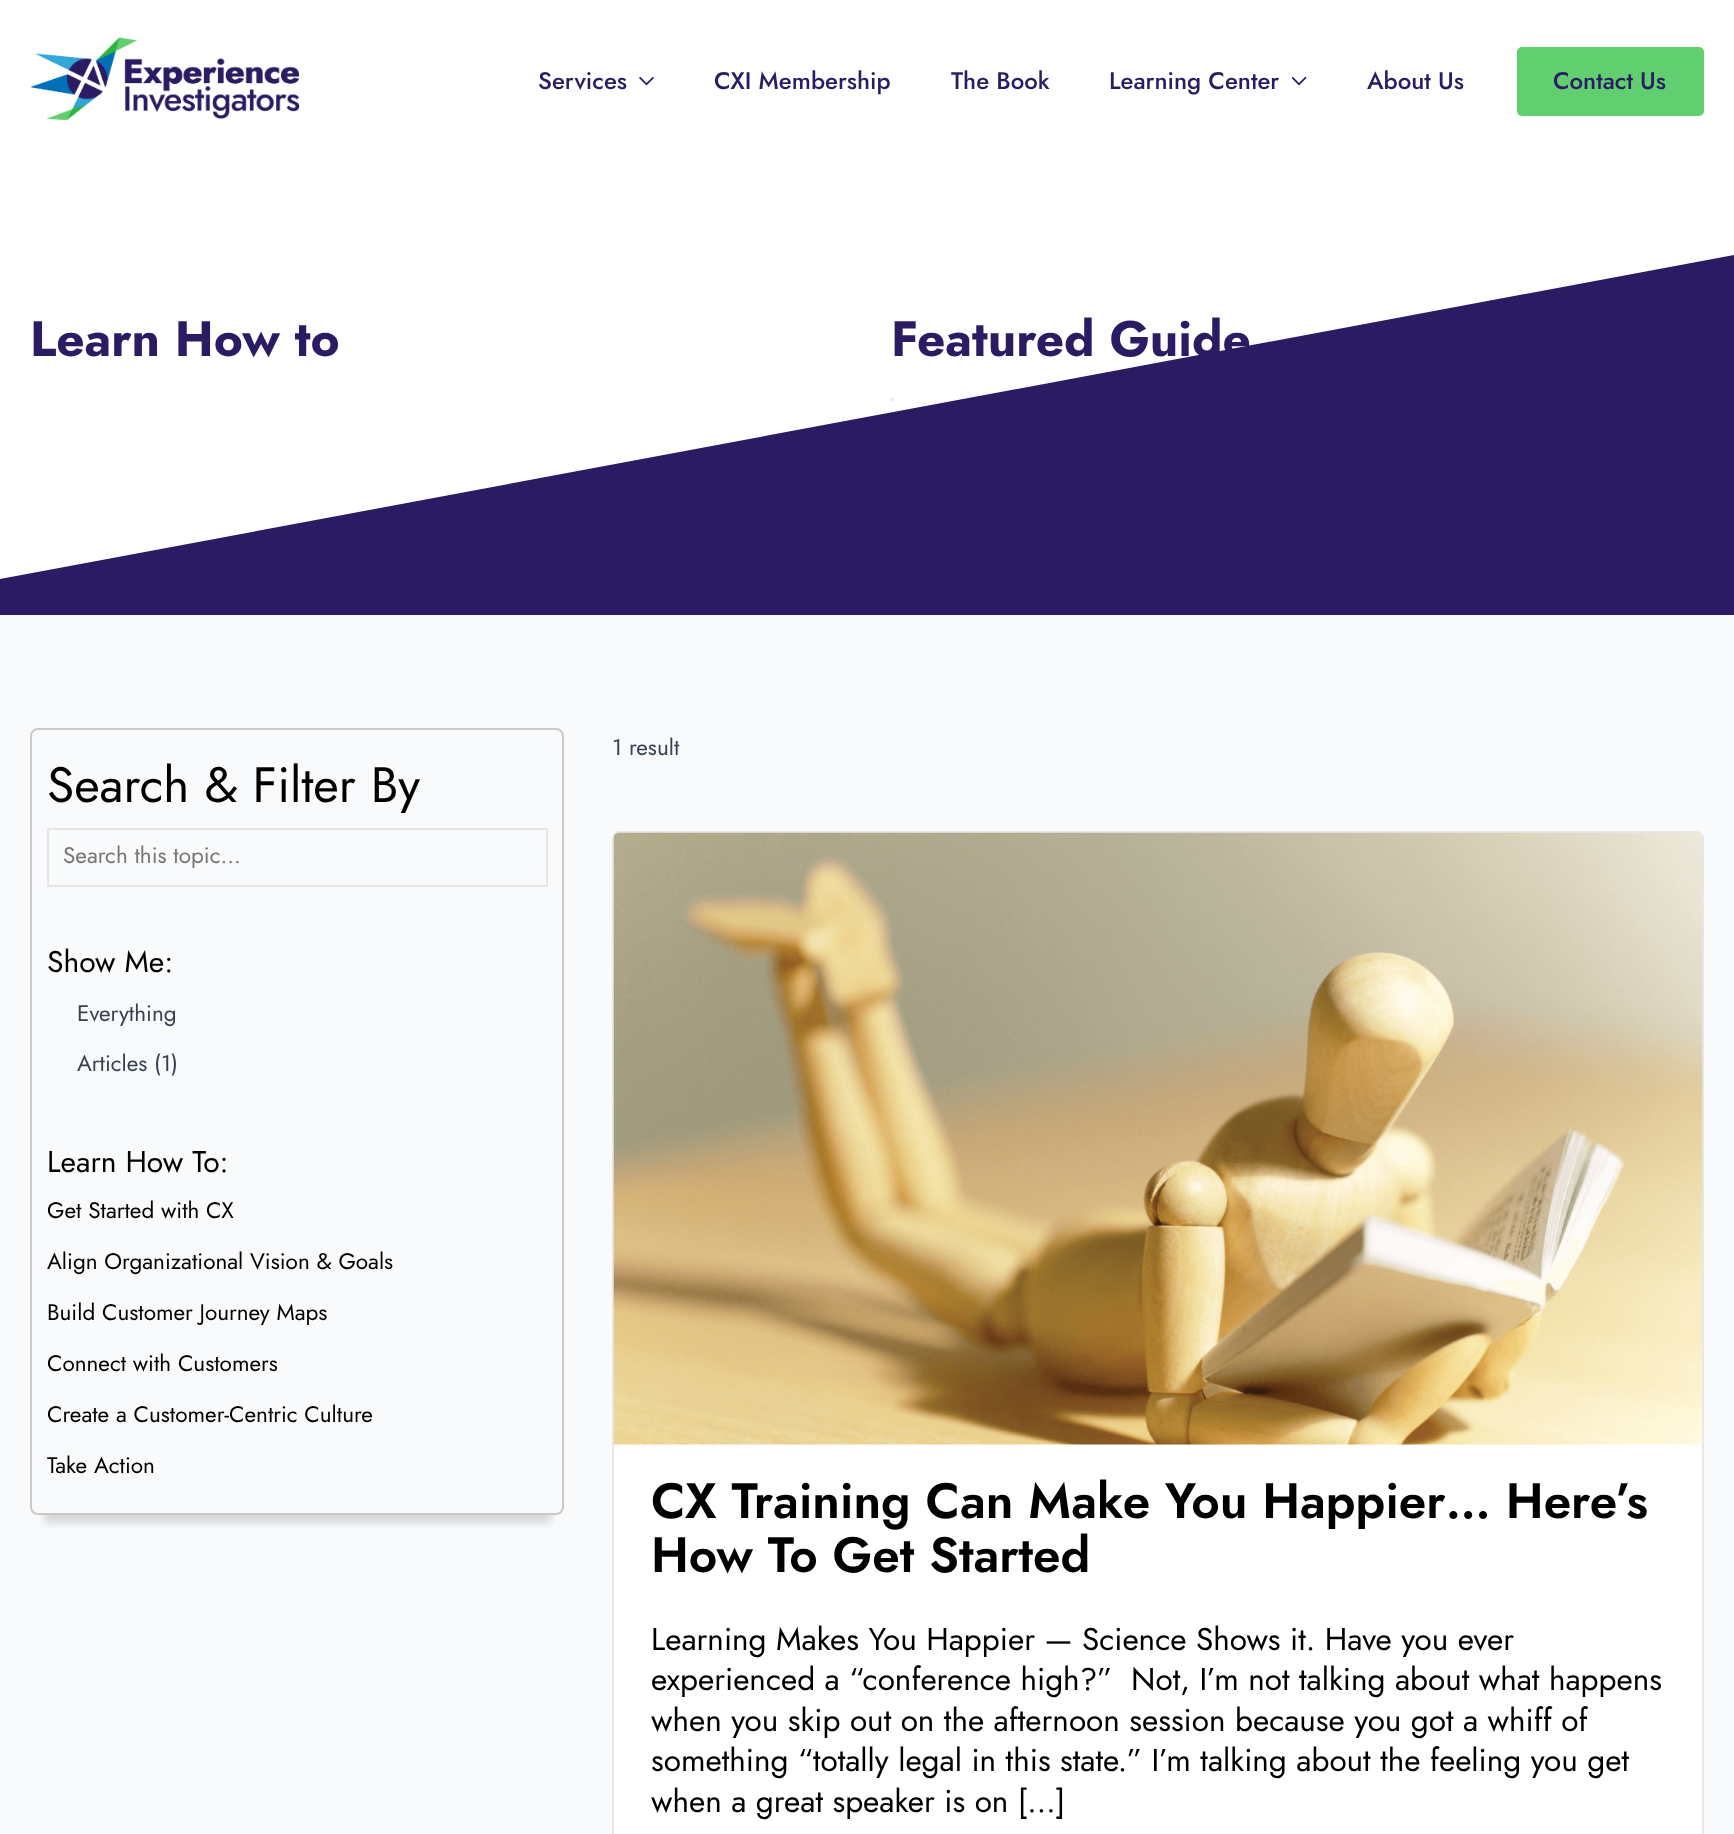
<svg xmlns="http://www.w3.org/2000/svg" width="1734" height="1834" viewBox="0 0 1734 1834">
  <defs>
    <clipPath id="clip1"><path d="M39 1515h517v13H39z"/></clipPath>
  </defs>
  <rect width="100%" height="100%" fill="#f9fafb"/>
  <path d="M0 0h1734v579H0z" fill="#fff"/>
  <image x="30" y="37" width="270" height="84" href="img/1.png"/>
  <image x="639" y="76" width="15" height="10" href="img/2.png"/>
  <image x="1292" y="76" width="15" height="10" href="img/3.png"/>
  <rect x="1517" y="47" width="187" height="69" rx="5" fill="#61ce70"/>
  <path d="M0 579L1734 255V615H0Z" fill="#2b1b63"/>
  <circle cx="892.5" cy="399.5" r="1.5" fill="#e7e7e7"/>
  <g clip-path="url(#clip1)">
    <path d="M44 762h507v761H44z" fill="#00000024" filter="blur(4.5px)"/>
  </g>
  <rect x="31" y="729" width="532" height="785" rx="7" fill="none" stroke="#c9c9c9" stroke-width="2"/>
  <path d="M48 829h499v57H48z" fill="none" stroke="#e5e5e5" stroke-width="2"/>
  <rect x="612" y="831" width="1092" height="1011" rx="8" fill="#fff"/>
  <rect x="613" y="832" width="1090" height="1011" rx="7" fill="none" stroke="#c0c1c161" stroke-width="2"/>
  <image x="613" y="832" width="1090" height="613" href="img/4.png"/>
  <g font-family="Jost" font-size="24" font-weight="500" fill="#2b1b63">
    <text x="538" y="89">Services</text>
    <text x="714" y="89">CXI Membership</text>
    <text x="951" y="89">The Book</text>
    <text x="1109" y="89">Learning Center</text>
    <text x="1367" y="89">About Us</text>
    <text x="1553" y="89">Contact Us</text>
  </g>
  <g font-family="Jost" font-size="49.5" font-weight="bold" fill="#2b1b63">
    <text x="30" y="356">Learn How to</text>
    <text x="891" y="356">Featured Guide</text>
  </g>
  <text x="47" y="802" font-family="Jost" font-size="49.5" fill="#000">Search &amp; Filter By</text>
  <text x="63" y="863" font-family="Jost" font-size="22.5" fill="#757575">Search this topic...</text>
  <text x="47" y="972" font-family="Jost" font-size="30" fill="#000">Show Me:</text>
  <g font-family="Jost" font-size="22.5" fill="#374151">
    <text x="77" y="1021">Everything</text>
    <text x="77" y="1071">Articles</text>
    <text x="154" y="1071">(1)</text>
  </g>
  <text x="47" y="1172" font-family="Jost" font-size="30" fill="#000">Learn How To:</text>
  <g font-family="Jost" font-size="22.5" fill="#000">
    <text x="47" y="1218">Get Started with CX</text>
    <text x="47" y="1269">Align Organizational Vision &amp; Goals</text>
    <text x="47" y="1320">Build Customer Journey Maps</text>
    <text x="47" y="1371">Connect with Customers</text>
    <text x="47" y="1422">Create a Customer-Centric Culture</text>
    <text x="47" y="1473">Take Action</text>
  </g>
  <text x="612" y="755" font-family="Jost" font-size="22.5" fill="#374151">1 result</text>
  <g font-family="Jost" font-size="49.5" font-weight="600" fill="#000">
    <text x="651" y="1518">CX Training Can Make You Happier… Here’s</text>
    <text x="651" y="1572">How To Get Started</text>
  </g>
  <g font-family="Jost" font-size="31.5" fill="#000">
    <text x="651" y="1650">Learning Makes You Happier — Science Shows it. Have you ever</text>
    <text x="651" y="1690" xml:space="preserve">experienced a “conference high?”  Not, I’m not talking about what happens</text>
    <text x="651" y="1731">when you skip out on the afternoon session because you got a whiff of</text>
    <text x="651" y="1771">something “totally legal in this state.” I’m talking about the feeling you get</text>
    <text x="651" y="1812">when a great speaker is on […]</text>
  </g>
</svg>
